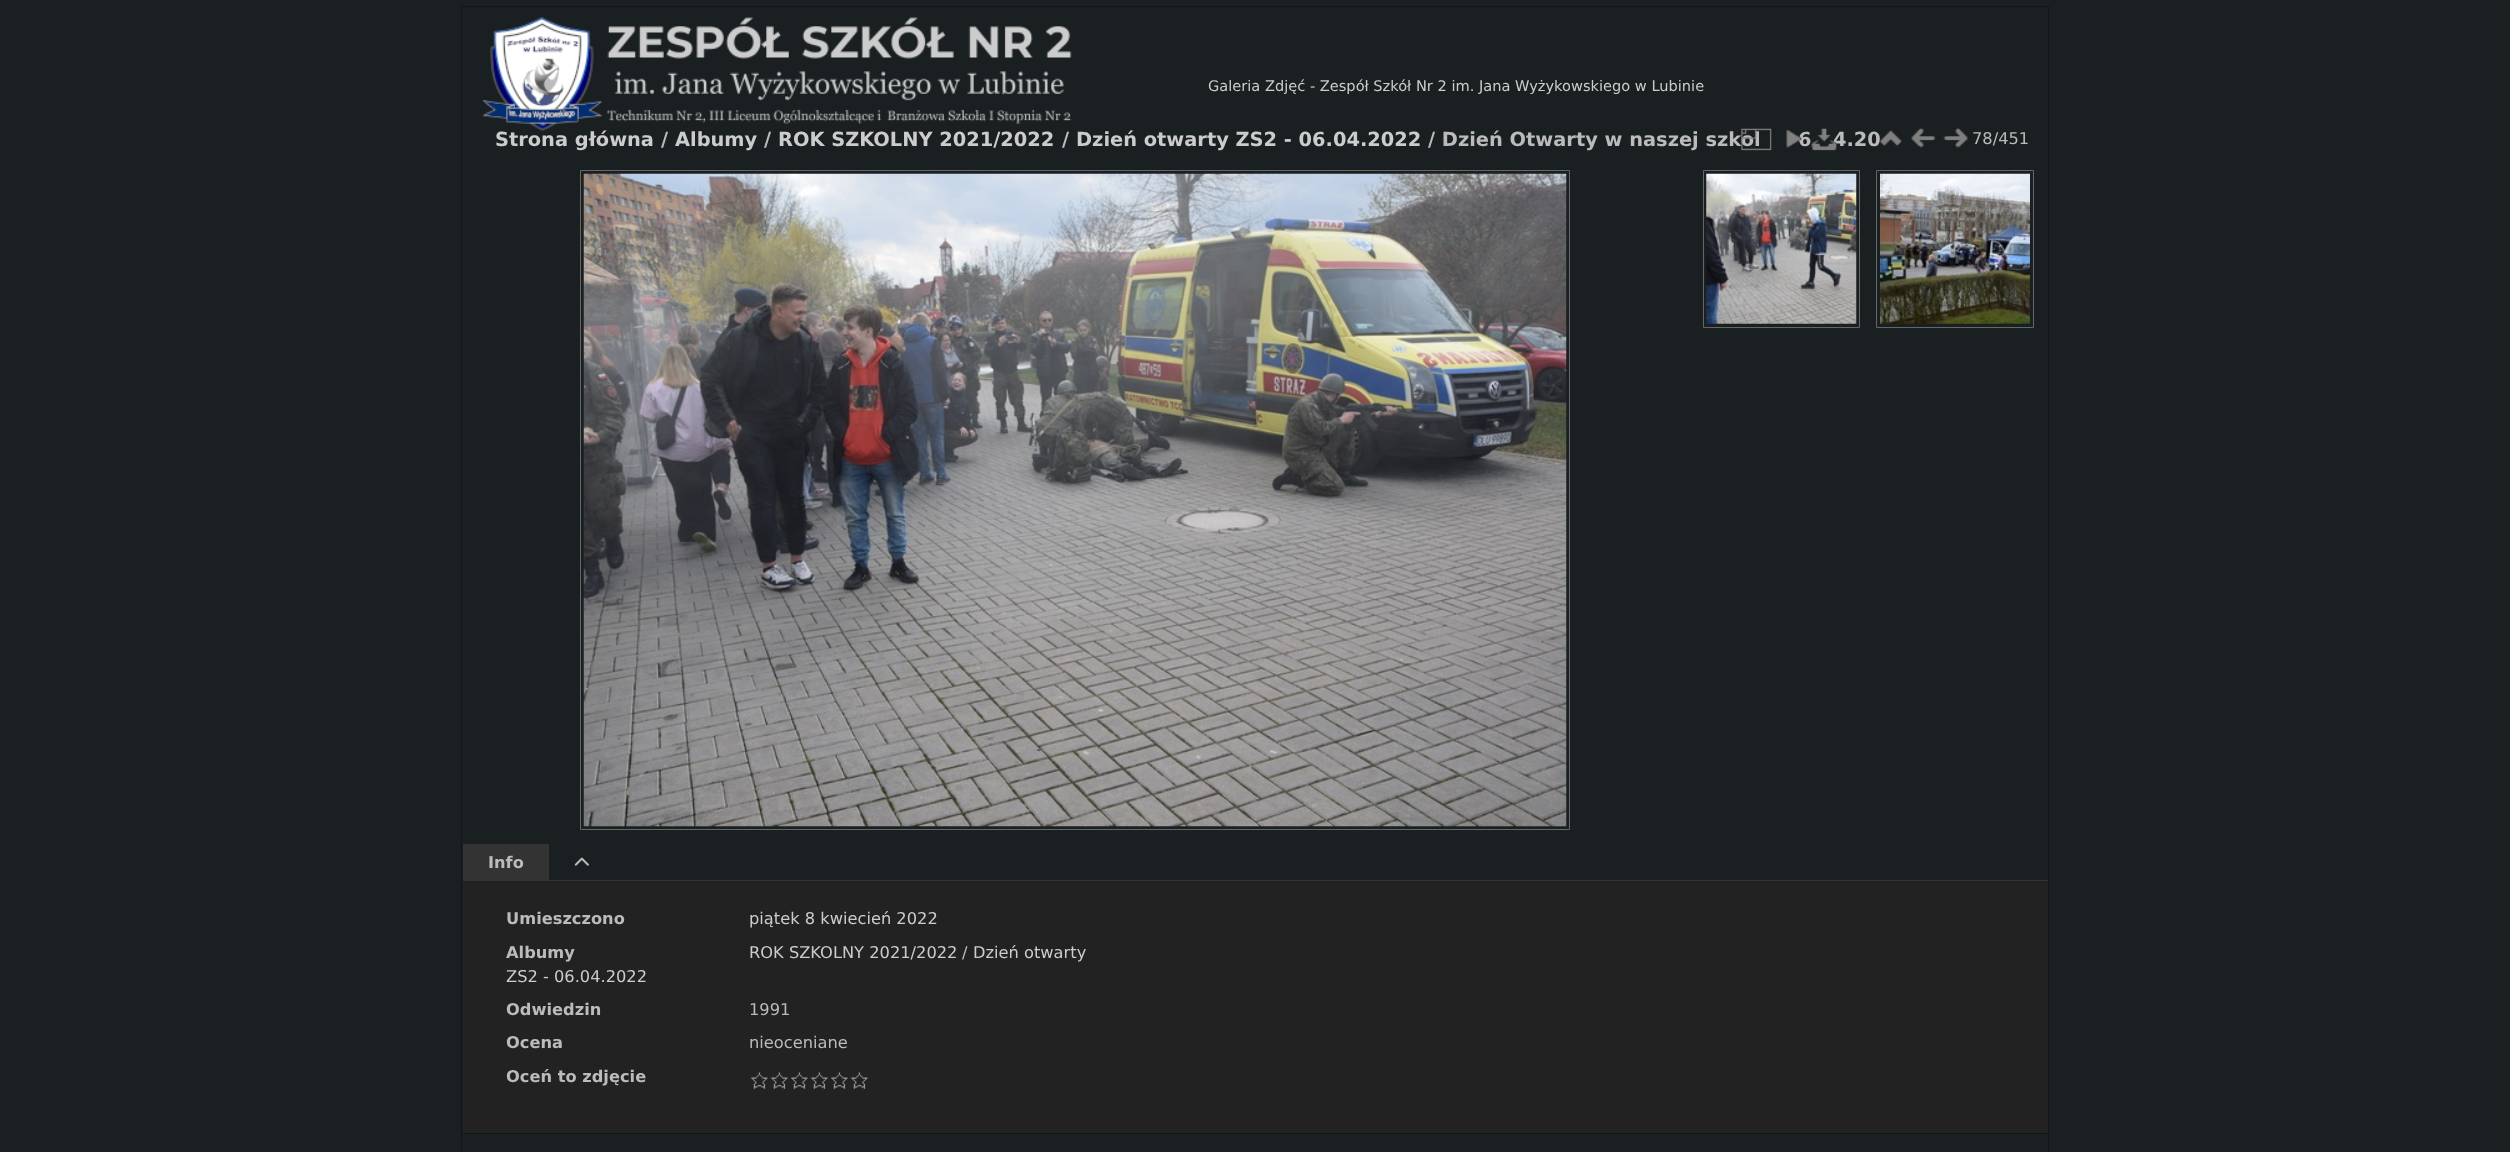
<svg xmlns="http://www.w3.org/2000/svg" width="2510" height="1152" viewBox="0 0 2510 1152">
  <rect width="100%" height="100%" fill="#1a2022"/>
  <path d="M461.5 6.5h1587v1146H461.5z" fill="none" stroke="#10151c"/>
  <image x="482" y="17" width="590" height="115" href="img/1.png"/>
  <image x="1880" y="130" width="22" height="17" href="img/5.png"/>
  <image x="1911" y="128" width="25" height="20" href="img/6.png"/>
  <image x="1943" y="128" width="25" height="20" href="img/7.png"/>
  <path d="M580.5 170.5h989v659H580.5z" fill="none" stroke="#666"/>
  <path d="M1703.5 170.5h156v157H1703.5z" fill="none" stroke="#666"/>
  <image x="1706" y="173" width="151" height="151" href="img/8.png"/>
  <path d="M1876.5 170.5h157v157H1876.5z" fill="none" stroke="#666"/>
  <image x="1880" y="173" width="150" height="151" href="img/9.png"/>
  <image x="583" y="173" width="984" height="654" href="img/10.png"/>
  <path d="M549 880h1499v1H549z" fill="#333"/>
  <path d="M463 844h86v37H463z" fill="#333"/>
  <image x="574" y="857" width="15" height="9" href="img/11.png"/>
  <path d="M463 881h1585v252H463z" fill="#222"/>
  <image x="751" y="1072" width="17" height="17" href="img/12.png"/>
  <image x="771" y="1072" width="17" height="17" href="img/13.png"/>
  <image x="791" y="1072" width="17" height="17" href="img/14.png"/>
  <image x="811" y="1072" width="17" height="17" href="img/15.png"/>
  <image x="831" y="1072" width="17" height="17" href="img/15.png"/>
  <image x="851" y="1072" width="17" height="17" href="img/15.png"/>
  <path d="M463 1133h1585v1H463z" fill="#10151c"/>
  <text x="1208" y="91" font-family="DejaVu Sans" font-size="14.6" fill="#ccc">Galeria Zdjęć - Zespół Szkół Nr 2 im. Jana Wyżykowskiego w Lubinie</text>
  <text x="495" y="146" font-family="DejaVu Sans" font-size="19.4" font-weight="bold" fill="#ccc">Strona główna</text>
  <text x="661" y="146" font-family="DejaVu Sans" font-size="19.4" font-weight="bold" fill="#bbb">/</text>
  <text x="675" y="146" font-family="DejaVu Sans" font-size="19.4" font-weight="bold" fill="#ccc">Albumy</text>
  <text x="764" y="146" font-family="DejaVu Sans" font-size="19.4" font-weight="bold" fill="#bbb">/</text>
  <text x="778" y="146" font-family="DejaVu Sans" font-size="19.4" font-weight="bold" fill="#ccc">ROK SZKOLNY 2021/2022</text>
  <text x="1062" y="146" font-family="DejaVu Sans" font-size="19.4" font-weight="bold" fill="#bbb">/</text>
  <text x="1076" y="146" font-family="DejaVu Sans" font-size="19.4" font-weight="bold" fill="#ccc">Dzień otwarty ZS2 - 06.04.2022</text>
  <g font-family="DejaVu Sans" font-size="19.4" font-weight="bold" fill="#bbb">
    <text x="1428" y="146">/ Dzień Otwarty w naszej szkol</text>
    <text x="1798" y="146">6</text>
    <text x="1833" y="146">4.20</text>
  </g>
  <image x="1741" y="128" width="31" height="23" href="img/2.png"/>
  <image x="1786" y="130" width="16" height="18" href="img/3.png"/>
  <image x="1811" y="128" width="27" height="23" href="img/4.png"/>
  <text x="1972" y="144" font-family="DejaVu Sans" font-size="16.25" fill="#bbb">78/451</text>
  <g font-family="DejaVu Sans" font-size="16.25" font-weight="bold" fill="#bbb">
    <text x="488" y="868">Info</text>
    <text x="506" y="924">Umieszczono</text>
  </g>
  <text x="749" y="924" font-family="DejaVu Sans" font-size="16.25" fill="#ccc">piątek 8 kwiecień 2022</text>
  <text x="506" y="958" font-family="DejaVu Sans" font-size="16.25" font-weight="bold" fill="#bbb">Albumy</text>
  <text x="749" y="958" font-family="DejaVu Sans" font-size="16.25" fill="#ccc">ROK SZKOLNY 2021/2022</text>
  <text x="962" y="958" font-family="DejaVu Sans" font-size="16.25" fill="#bbb">/</text>
  <g font-family="DejaVu Sans" font-size="16.25" fill="#ccc">
    <text x="973" y="958">Dzień otwarty</text>
    <text x="506" y="982">ZS2 - 06.04.2022</text>
  </g>
  <text x="506" y="1015" font-family="DejaVu Sans" font-size="16.25" font-weight="bold" fill="#bbb">Odwiedzin</text>
  <text x="749" y="1015" font-family="DejaVu Sans" font-size="16.25" fill="#bbb">1991</text>
  <text x="506" y="1048" font-family="DejaVu Sans" font-size="16.25" font-weight="bold" fill="#bbb">Ocena</text>
  <text x="749" y="1048" font-family="DejaVu Sans" font-size="16.25" fill="#bbb">nieoceniane</text>
  <text x="506" y="1082" font-family="DejaVu Sans" font-size="16.25" font-weight="bold" fill="#bbb">Oceń to zdjęcie</text>
</svg>
